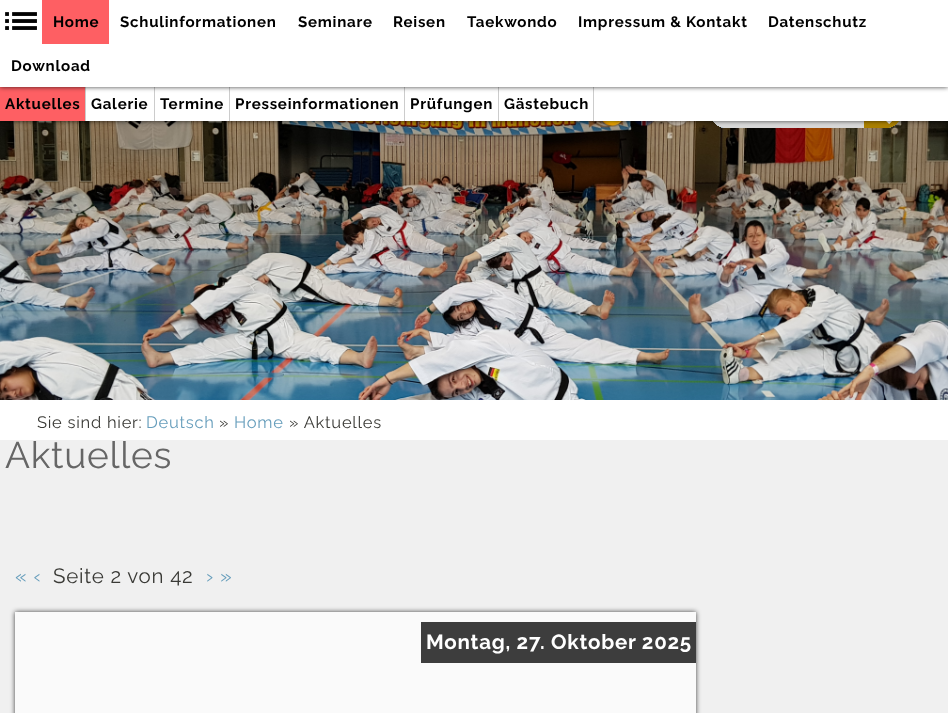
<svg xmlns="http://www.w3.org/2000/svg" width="948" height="713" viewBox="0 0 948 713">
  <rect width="100%" height="100%" fill="#f0f0f0"/>
  <image x="0" y="121" width="948" height="279" href="img/2.png"/>
  <image x="601" y="121" width="22" height="6" href="img/3.png"/>
  <image x="633" y="121" width="22" height="6" href="img/4.png"/>
  <image x="666" y="121" width="22" height="6" href="img/5.png"/>
  <image x="713" y="121" width="151" height="7" href="img/6.png"/>
  <image x="864" y="121" width="35" height="7" href="img/7.png"/>
  <path d="M0 87h948v34H0z" fill="#000000bf" filter="blur(2.5px)"/>
  <path d="M86 87h862v34H86z" fill="#fff"/>
  <path d="M0 87h85v34H0z" fill="#fe5f63"/>
  <path d="M85 87h1v34H85z" fill="#ccc"/>
  <path d="M154 87h1v34H154z" fill="#ccc"/>
  <path d="M229 87h1v34H229z" fill="#ccc"/>
  <path d="M404 87h1v34H404z" fill="#ccc"/>
  <path d="M498 87h1v34H498z" fill="#ccc"/>
  <path d="M593 87h1v34H593z" fill="#ccc"/>
  <path d="M0 0h948v87H0z" fill="#000000bf" filter="blur(2.5px)"/>
  <path d="M0 0h948v87H0z" fill="#fff"/>
  <image x="5" y="12" width="32" height="18" href="img/1.png"/>
  <path d="M42 0h67v44H42z" fill="#fe5f63"/>
  <path d="M0 400h948v40H0z" fill="#fff"/>
  <path d="M15 612h681v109H15z" fill="#000000bf" filter="blur(2.5px)"/>
  <path d="M15 612h681v101H15z" fill="#fafafa"/>
  <path d="M421 622h275v41H421z" fill="#3d3d3d"/>
  <g font-family="Raleway" font-size="15.1" font-weight="bold" letter-spacing="0.75" fill="#000">
    <text x="53" y="27">Home</text>
    <text x="120" y="27">Schulinformationen</text>
    <text x="298" y="27">Seminare</text>
    <text x="393" y="27">Reisen</text>
    <text x="467" y="27">Taekwondo</text>
    <text x="578" y="27">Impressum &amp; Kontakt</text>
    <text x="768" y="27">Datenschutz</text>
    <text x="11" y="71">Download</text>
    <text x="5" y="109">Aktuelles</text>
    <text x="91" y="109">Galerie</text>
    <text x="160" y="109">Termine</text>
    <text x="235" y="109">Presseinformationen</text>
    <text x="410" y="109">Prüfungen</text>
    <text x="504" y="109">Gästebuch</text>
  </g>
  <text x="37" y="428" font-family="Raleway" font-size="16.5" letter-spacing="0.75" fill="#3a3a36">Sie sind hier:</text>
  <text x="146" y="428" font-family="Raleway" font-size="16.5" letter-spacing="0.75" fill="#679ebc">Deutsch</text>
  <text x="219" y="428" font-family="Raleway" font-size="16.5" letter-spacing="0.75" fill="#3a3a36">»</text>
  <text x="234" y="428" font-family="Raleway" font-size="16.5" letter-spacing="0.75" fill="#679ebc">Home</text>
  <text x="289" y="428" font-family="Raleway" font-size="16.5" letter-spacing="0.75" fill="#3a3a36">» Aktuelles</text>
  <text x="5" y="468" font-family="Raleway" font-size="37" letter-spacing="0.75" fill="#666">Aktuelles</text>
  <text x="15" y="583" font-family="Raleway" font-size="20.5" letter-spacing="0.75" fill="#679ebc">« ‹</text>
  <text x="53" y="583" font-family="Raleway" font-size="20.5" letter-spacing="0.75" fill="#3a3a36">Seite 2 von 42</text>
  <text x="206" y="583" font-family="Raleway" font-size="20.5" letter-spacing="0.75" fill="#679ebc">› »</text>
  <text x="426" y="649" font-family="Raleway" font-size="20.5" font-weight="bold" letter-spacing="0.75" fill="#fff">Montag, 27. Oktober 2025</text>
</svg>
